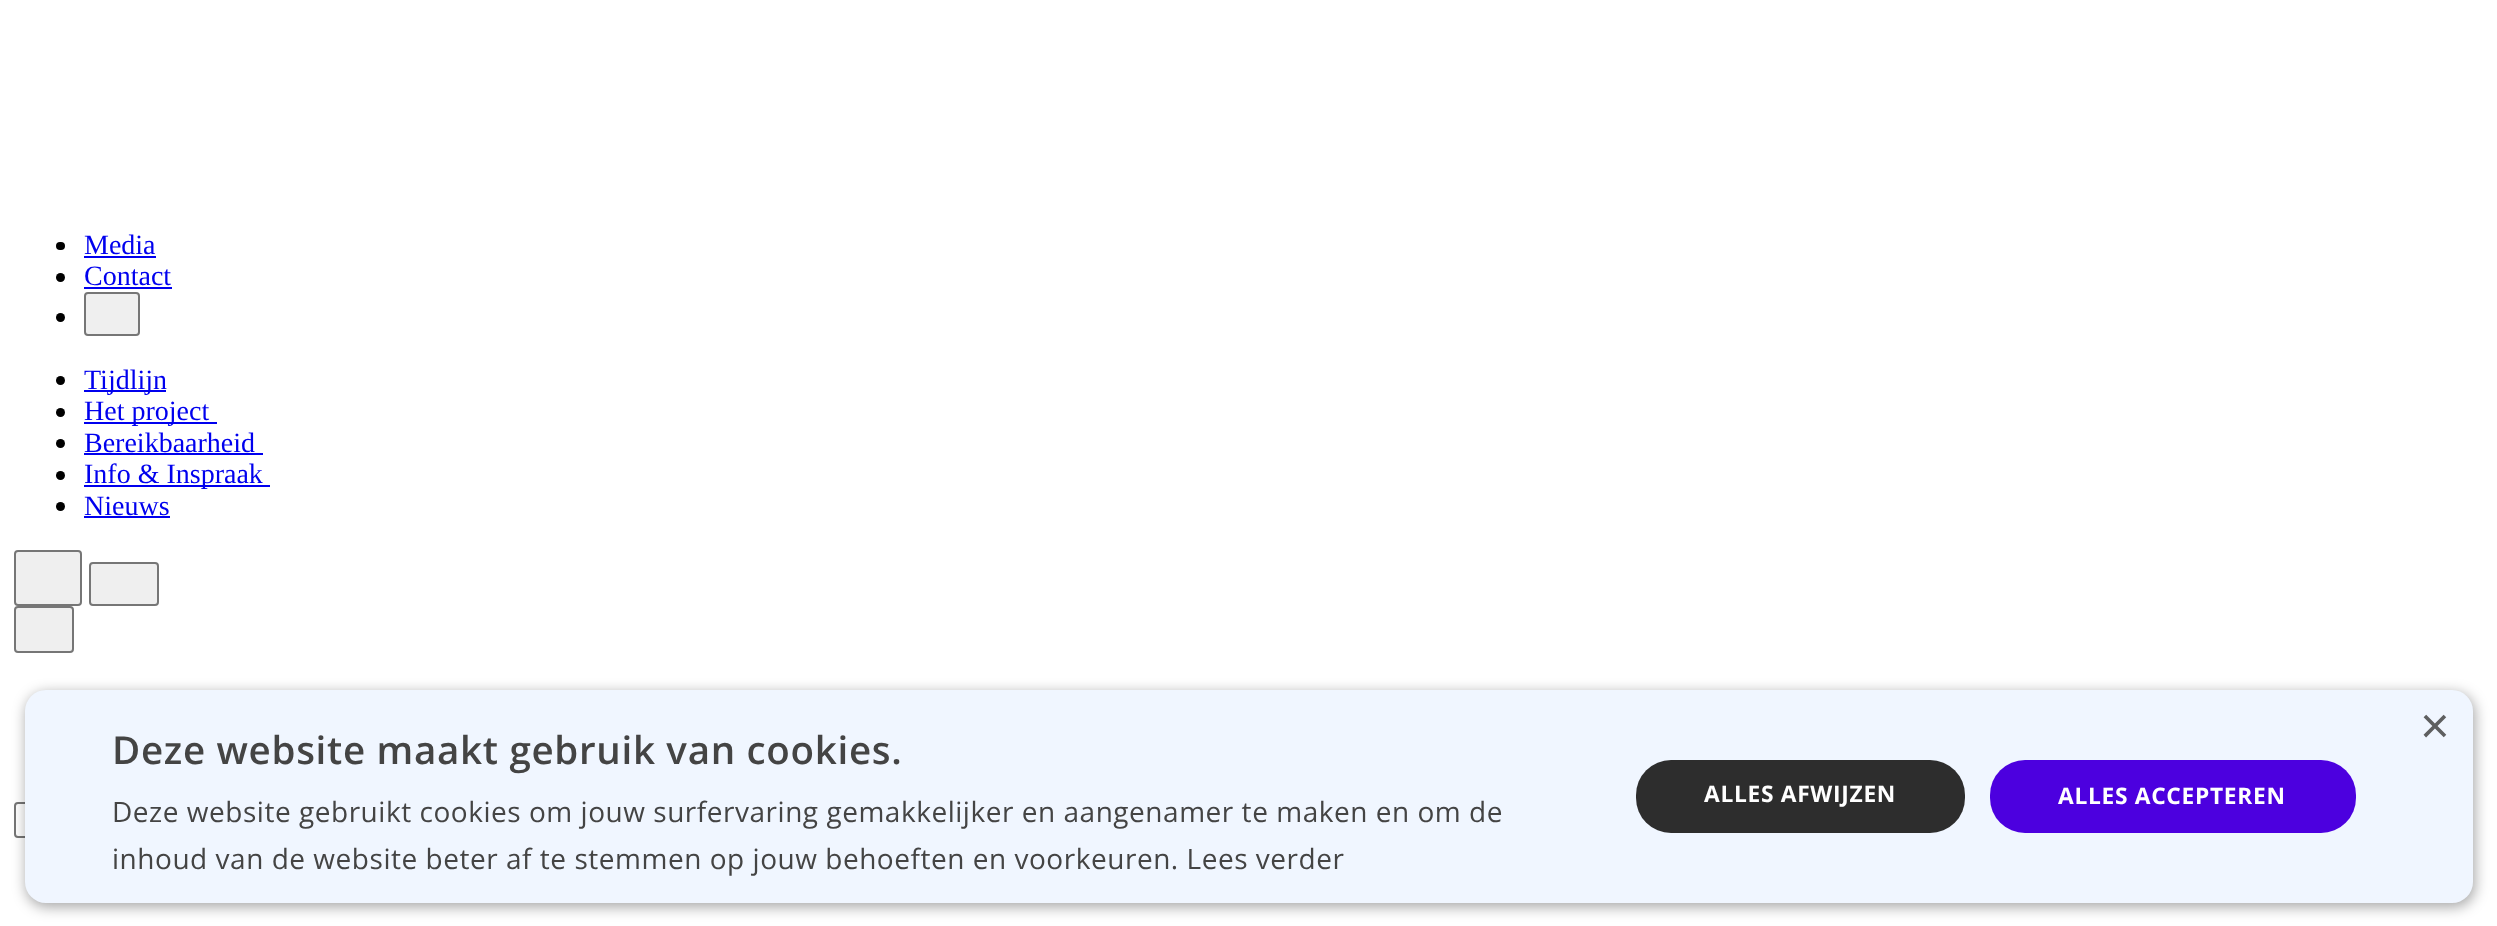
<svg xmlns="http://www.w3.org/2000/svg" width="2497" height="926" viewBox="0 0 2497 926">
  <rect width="100%" height="100%" fill="#fff"/>
  <rect x="56" y="242" width="9" height="8" rx="4" fill="#000"/>
  <path d="M84 256h72v2H84z" fill="#00e"/>
  <circle cx="60.5" cy="277.5" r="4.5" fill="#000"/>
  <path d="M84 287h88v2H84z" fill="#00e"/>
  <circle cx="60.5" cy="317.5" r="4.5" fill="#000"/>
  <rect x="85" y="293" width="54" height="42" rx="3" fill="#efefef" stroke="#767676" stroke-width="2"/>
  <circle cx="60.5" cy="380.5" r="4.5" fill="#000"/>
  <path d="M84 390h82v2H84z" fill="#00e"/>
  <circle cx="60.5" cy="412.5" r="4.5" fill="#000"/>
  <path d="M84 422h133v2H84z" fill="#00e"/>
  <circle cx="60.5" cy="443.5" r="4.5" fill="#000"/>
  <path d="M84 453h179v2H84z" fill="#00e"/>
  <circle cx="60.5" cy="475.5" r="4.5" fill="#000"/>
  <path d="M84 485h186v2H84z" fill="#00e"/>
  <circle cx="60.5" cy="506.5" r="4.5" fill="#000"/>
  <path d="M84 516h86v2H84z" fill="#00e"/>
  <rect x="15" y="551" width="66" height="54" rx="3" fill="#efefef" stroke="#767676" stroke-width="2"/>
  <rect x="90" y="563" width="68" height="42" rx="3" fill="#efefef" stroke="#767676" stroke-width="2"/>
  <rect x="15" y="607" width="58" height="45" rx="3" fill="#efefef" stroke="#767676" stroke-width="2"/>
  <rect x="15" y="803" width="322" height="34" rx="3" fill="none" stroke="#767676" stroke-width="2"/>
  <rect x="26" y="693" width="2449" height="214" rx="21" fill="#00000059" filter="blur(7px)"/>
  <rect x="25" y="690" width="2448" height="213" rx="21" fill="#f0f6ff"/>
  <rect x="1636" y="760" width="329" height="73" rx="35" fill="#2d2d2d"/>
  <rect x="1990" y="760" width="366" height="73" rx="35" fill="#4c00df"/>
  <g font-family="Liberation Serif" font-size="28" fill="#00e">
    <text x="84" y="254">Media</text>
    <text x="84" y="285">Contact</text>
    <text x="84" y="389">Tijdlijn</text>
    <text x="84" y="420">Het project</text>
    <text x="84" y="452">Bereikbaarheid</text>
    <text x="84" y="483">Info &amp; Inspraak</text>
    <text x="84" y="515">Nieuws</text>
  </g>
  <text x="2420" y="743" font-family="Liberation Sans" font-size="51" fill="#5e5f60">×</text>
  <text x="112" y="764" font-family="Open Sans" font-size="38.5" font-weight="600" letter-spacing="0.7" fill="#444">Deze website maakt gebruik van cookies.</text>
  <g font-family="Open Sans" font-size="28" letter-spacing="0.53" fill="#444">
    <text x="112" y="822">Deze website gebruikt cookies om jouw surfervaring gemakkelijker en aangenamer te maken en om de</text>
    <text x="112" y="869">inhoud van de website beter af te stemmen op jouw behoeften en voorkeuren. Lees verder</text>
  </g>
  <g font-family="Open Sans" font-size="22.75" font-weight="bold" letter-spacing="0.7" fill="#fff">
    <text x="1704" y="802">ALLES AFWIJZEN</text>
    <text x="2058" y="804">ALLES ACCEPTEREN</text>
  </g>
</svg>
